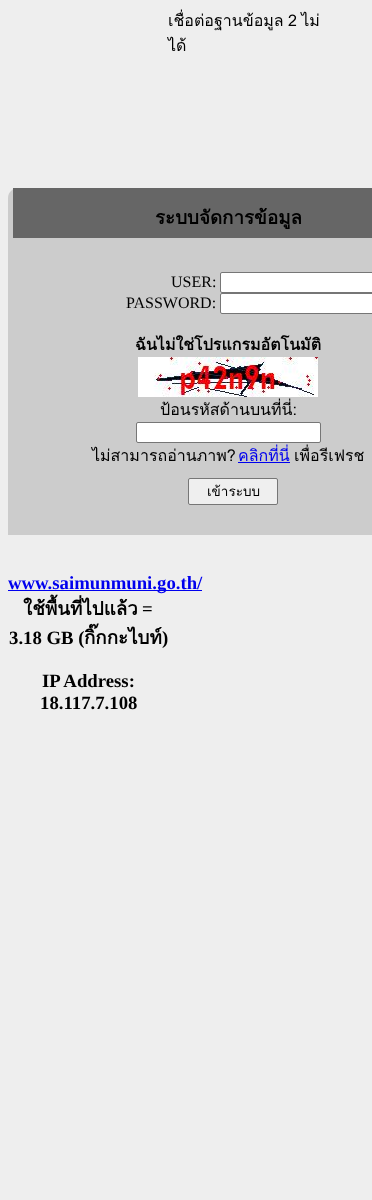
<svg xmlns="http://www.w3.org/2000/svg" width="372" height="1200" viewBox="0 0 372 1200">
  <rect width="100%" height="100%" fill="#eee"/>
  <path d="M18 188H372C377.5 188 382 192.5 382 198V535H8V198C8 192.5 12.5 188 18 188Z" fill="#ccc"/>
  <path d="M13 188h359v50H13z" fill="#666"/>
  <rect x="220.5" y="272.5" width="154" height="20" rx="1.5" fill="#fff" stroke="#767676"/>
  <rect x="220.5" y="293.5" width="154" height="20" rx="1.5" fill="#fff" stroke="#767676"/>
  <image x="138" y="357" width="180" height="40" href="img/1.png"/>
  <rect x="136.5" y="422.5" width="184" height="20" rx="1.5" fill="#fff" stroke="#767676"/>
  <path d="M238 462h52v1H238z" fill="#00e"/>
  <rect x="188.5" y="478.5" width="89" height="26" rx="1.5" fill="#efefef" stroke="#767676"/>
  <path d="M8 590h194v1H8z" fill="#00e"/>
  <g font-family="Loma" font-size="16" fill="#000">
    <text x="168" y="26" word-spacing="-1">เชื่อต่อฐานข้อมูล 2 ไม่</text>
    <text x="168" y="51">ได้</text>
  </g>
  <text x="155" y="224" font-family="Loma" font-size="18.75" font-weight="bold" fill="#000">ระบบจัดการข้อมูล</text>
  <g font-family="Liberation Serif" font-size="16" fill="#000">
    <text x="171" y="287">USER:</text>
    <text x="126" y="308">PASSWORD:</text>
  </g>
  <text x="135" y="350" font-family="Loma" font-size="16" font-weight="bold" fill="#000">ฉันไม่ใช่โปรแกรมอัตโนมัติ</text>
  <g font-family="Loma" font-size="16" fill="#000">
    <text x="160" y="415">ป้อนรหัสด้านบนที่นี่:</text>
    <text x="92" y="461">ไม่สามารถอ่านภาพ?</text>
  </g>
  <text x="238" y="461" font-family="Loma" font-size="16" fill="#00e">คลิกที่นี่</text>
  <text x="294" y="461" font-family="Loma" font-size="16" fill="#000">เพื่อรีเฟรช</text>
  <text x="207" y="496" font-family="Loma" font-size="13.5" fill="#000">เข้าระบบ</text>
  <text x="8" y="589" font-family="Liberation Serif" font-size="18.75" font-weight="bold" fill="#00e">www.saimunmuni.go.th/</text>
  <text x="23" y="615" font-family="Loma" font-size="18.75" font-weight="bold" fill="#000">ใช้พื้นที่ไปแล้ว</text>
  <g font-family="Liberation Serif" font-size="18.75" font-weight="bold" fill="#000">
    <text x="142" y="615">=</text>
    <text x="9" y="644">3.18 GB (</text>
  </g>
  <text x="84" y="644" font-family="Loma" font-size="18.75" font-weight="bold" fill="#000">กิ๊กกะไบท์</text>
  <g font-family="Liberation Serif" font-size="18.75" font-weight="bold" fill="#000">
    <text x="162" y="644">)</text>
    <text x="42" y="687">IP Address:</text>
    <text x="40" y="709">18.117.7.108</text>
  </g>
</svg>
